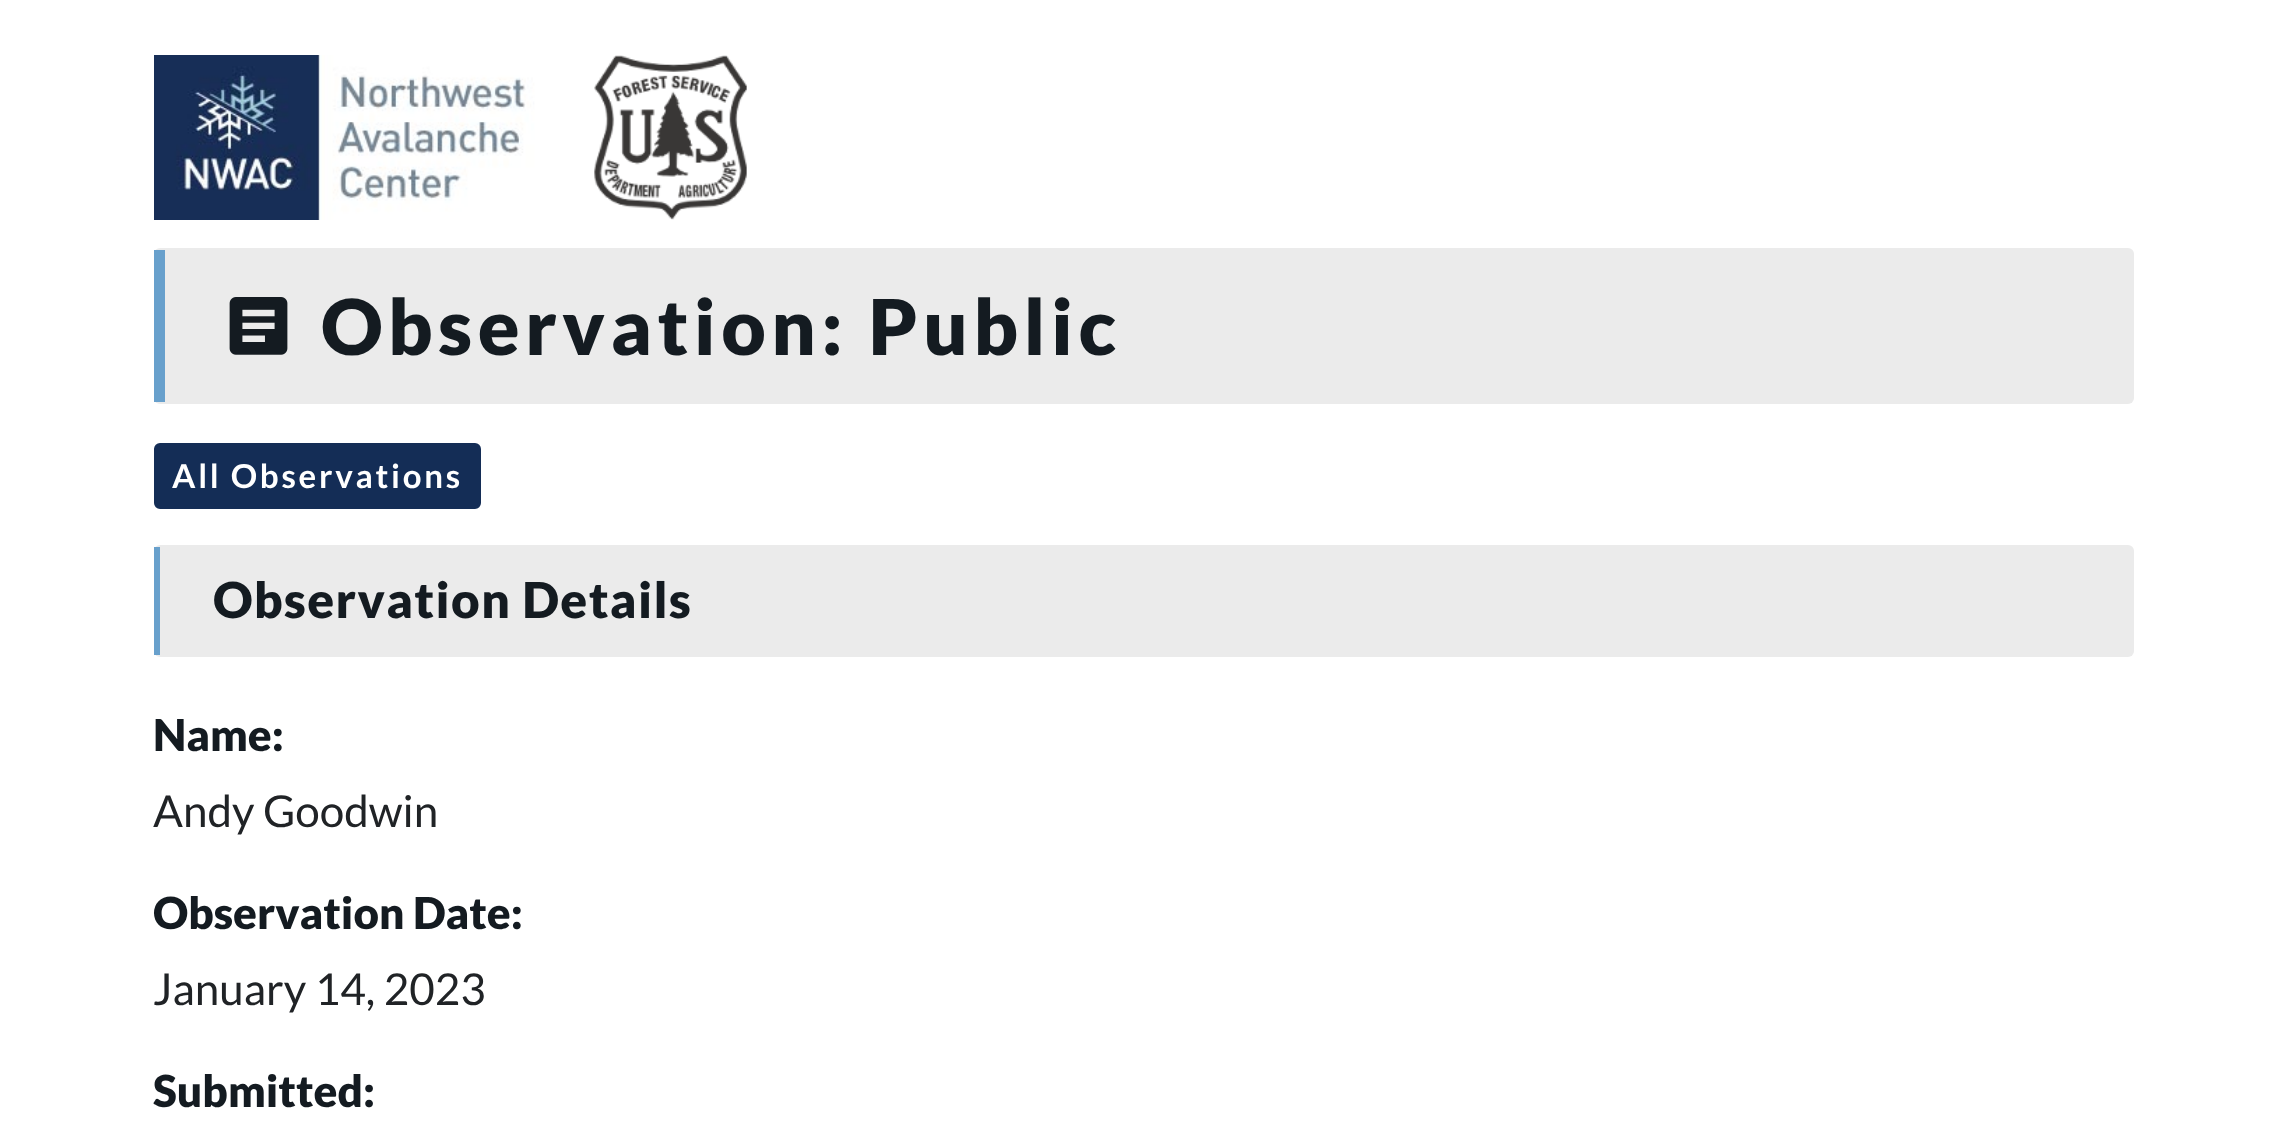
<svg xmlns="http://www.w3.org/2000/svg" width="2283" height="1123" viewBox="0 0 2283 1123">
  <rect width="100%" height="100%" fill="#fff"/>
  <image x="154" y="55" width="593" height="165" href="img/1.png"/>
  <rect x="154" y="248" width="1980" height="156" rx="6" fill="#ebebeb"/>
  <path d="M154 250h11v152H154z" fill="#68a0cc"/>
  <image x="229" y="297" width="59" height="58" href="img/2.png"/>
  <rect x="155.5" y="444.5" width="324" height="63" rx="4.5" fill="#142d56" stroke="#142d56" stroke-width="3"/>
  <rect x="154" y="545" width="1980" height="112" rx="6" fill="#ebebeb"/>
  <path d="M154 547h6v108H154z" fill="#68a0cc"/>
  <text x="321" y="355" font-family="Lato" font-size="77" font-weight="900" letter-spacing="5.5" fill="#141b21">Observation: Public</text>
  <text x="172" y="488" font-family="Lato" font-size="33" font-weight="bold" letter-spacing="2.75" fill="#fff">All Observations</text>
  <text x="213" y="618" font-family="Lato" font-size="49.5" font-weight="900" letter-spacing="1.4" fill="#141b21">Observation Details</text>
  <text x="153" y="751" font-family="Lato" font-size="44" font-weight="900" fill="#141b21">Name:</text>
  <text x="153" y="827" font-family="Lato" font-size="44" fill="#202326">Andy Goodwin</text>
  <text x="153" y="929" font-family="Lato" font-size="44" font-weight="900" fill="#141b21">Observation Date:</text>
  <text x="153" y="1005" font-family="Lato" font-size="44" fill="#202326">January 14, 2023</text>
  <text x="153" y="1107" font-family="Lato" font-size="44" font-weight="900" fill="#141b21">Submitted:</text>
</svg>
